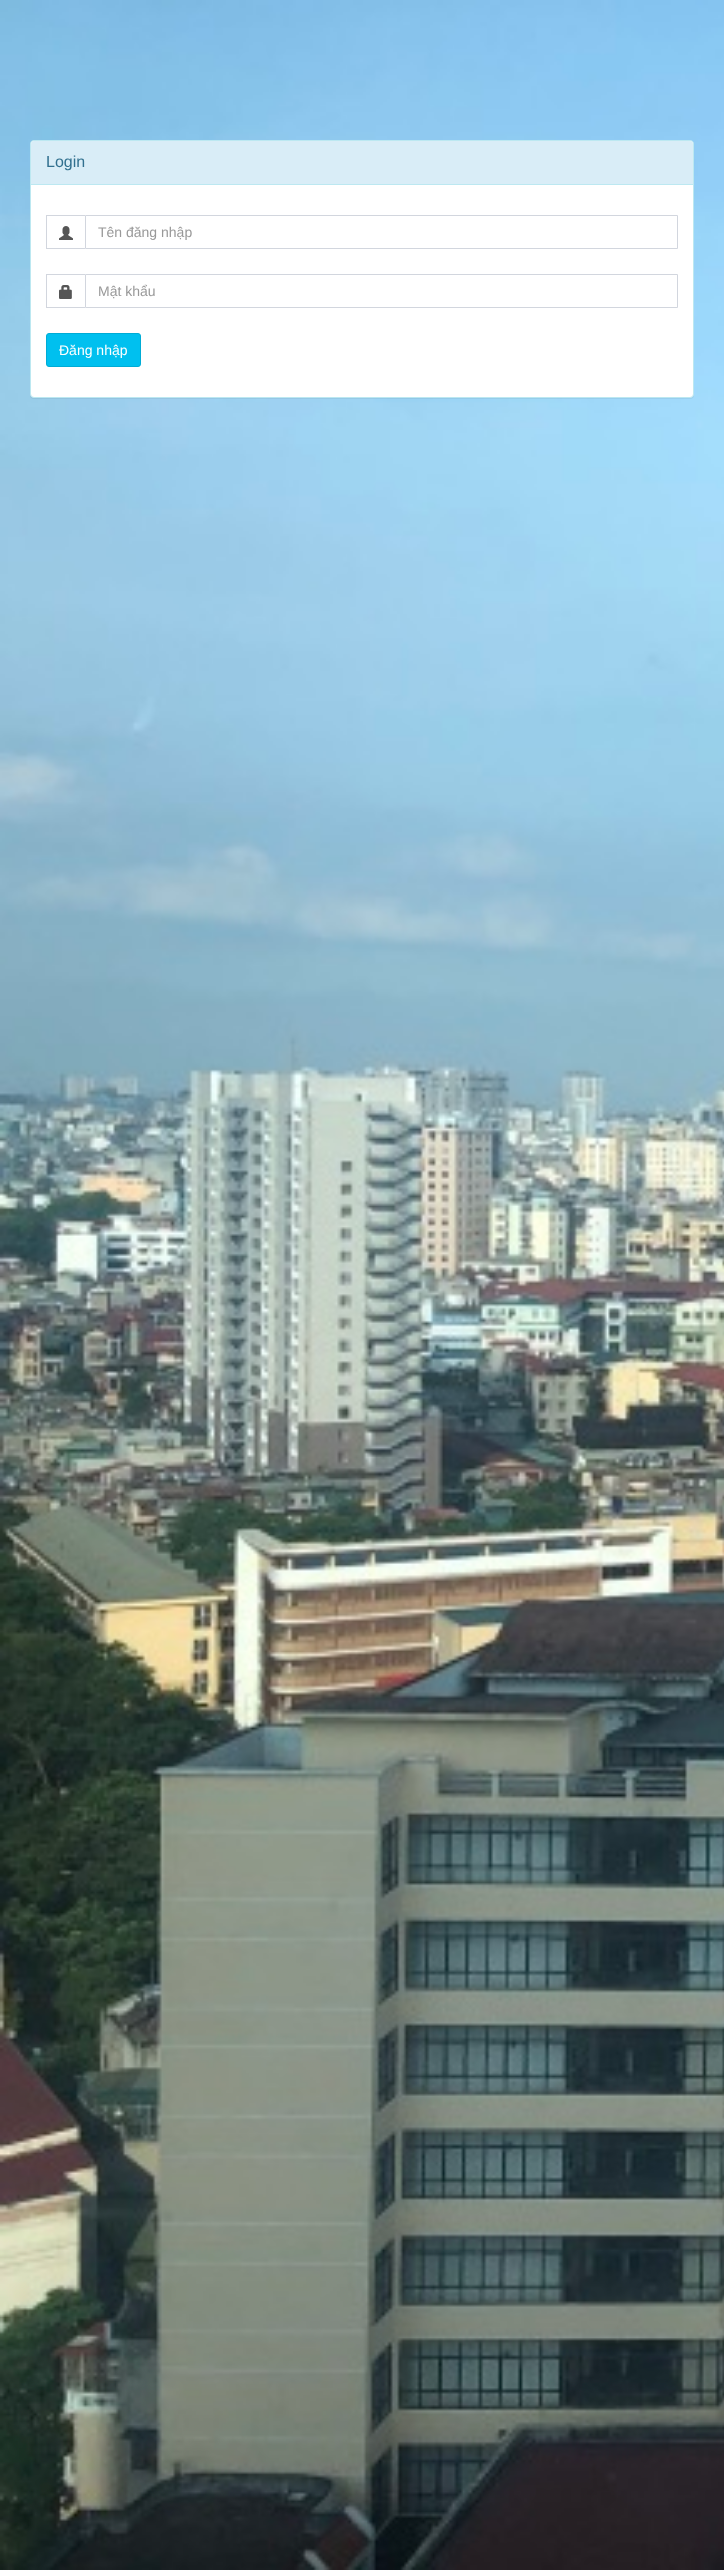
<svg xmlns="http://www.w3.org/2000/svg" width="724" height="2570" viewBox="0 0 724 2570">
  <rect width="100%" height="100%" fill="#fff"/>
  <image x="0" y="0" width="724" height="2570" href="img/1.png"/>
  <rect x="30" y="141" width="664" height="258" rx="4" fill="#0000000d" filter="blur(0.5px)"/>
  <rect x="30.5" y="140.5" width="663" height="257" rx="3.5" fill="#fff" stroke="#bce8f1"/>
  <path d="M34 141H690C691.5 141 693 142.5 693 144V185H31V144C31 142.5 32.5 141 34 141Z" fill="#d9edf7"/>
  <path d="M31 184h662v1H31z" fill="#bce8f1"/>
  <path d="M46 215h39v1H46z" fill="#d2d6de"/>
  <path d="M46 248h39v1H46z" fill="#d2d6de"/>
  <path d="M46 215h1v34H46z" fill="#d2d6de"/>
  <image x="59" y="226" width="14" height="14" href="img/2.png"/>
  <path d="M85.5 215.5h592v33H85.5z" fill="none" stroke="#d2d6de"/>
  <path d="M46 274h39v1H46z" fill="#d2d6de"/>
  <path d="M46 307h39v1H46z" fill="#d2d6de"/>
  <path d="M46 274h1v34H46z" fill="#d2d6de"/>
  <image x="59" y="285" width="13" height="14" href="img/3.png"/>
  <path d="M85.5 274.5h592v33H85.5z" fill="none" stroke="#d2d6de"/>
  <rect x="46.5" y="333.5" width="94" height="33" rx="2.5" fill="#00c0ef" stroke="#00acd6"/>
  <text x="46" y="167" font-family="Liberation Sans" font-size="16" fill="#31708f">Login</text>
  <g font-family="Liberation Sans" font-size="14" fill="#999">
    <text x="98" y="237">Tên đăng nhập</text>
    <text x="98" y="296">Mật khẩu</text>
  </g>
  <text x="59" y="355" font-family="Liberation Sans" font-size="14" fill="#fff">Đăng nhập</text>
</svg>
